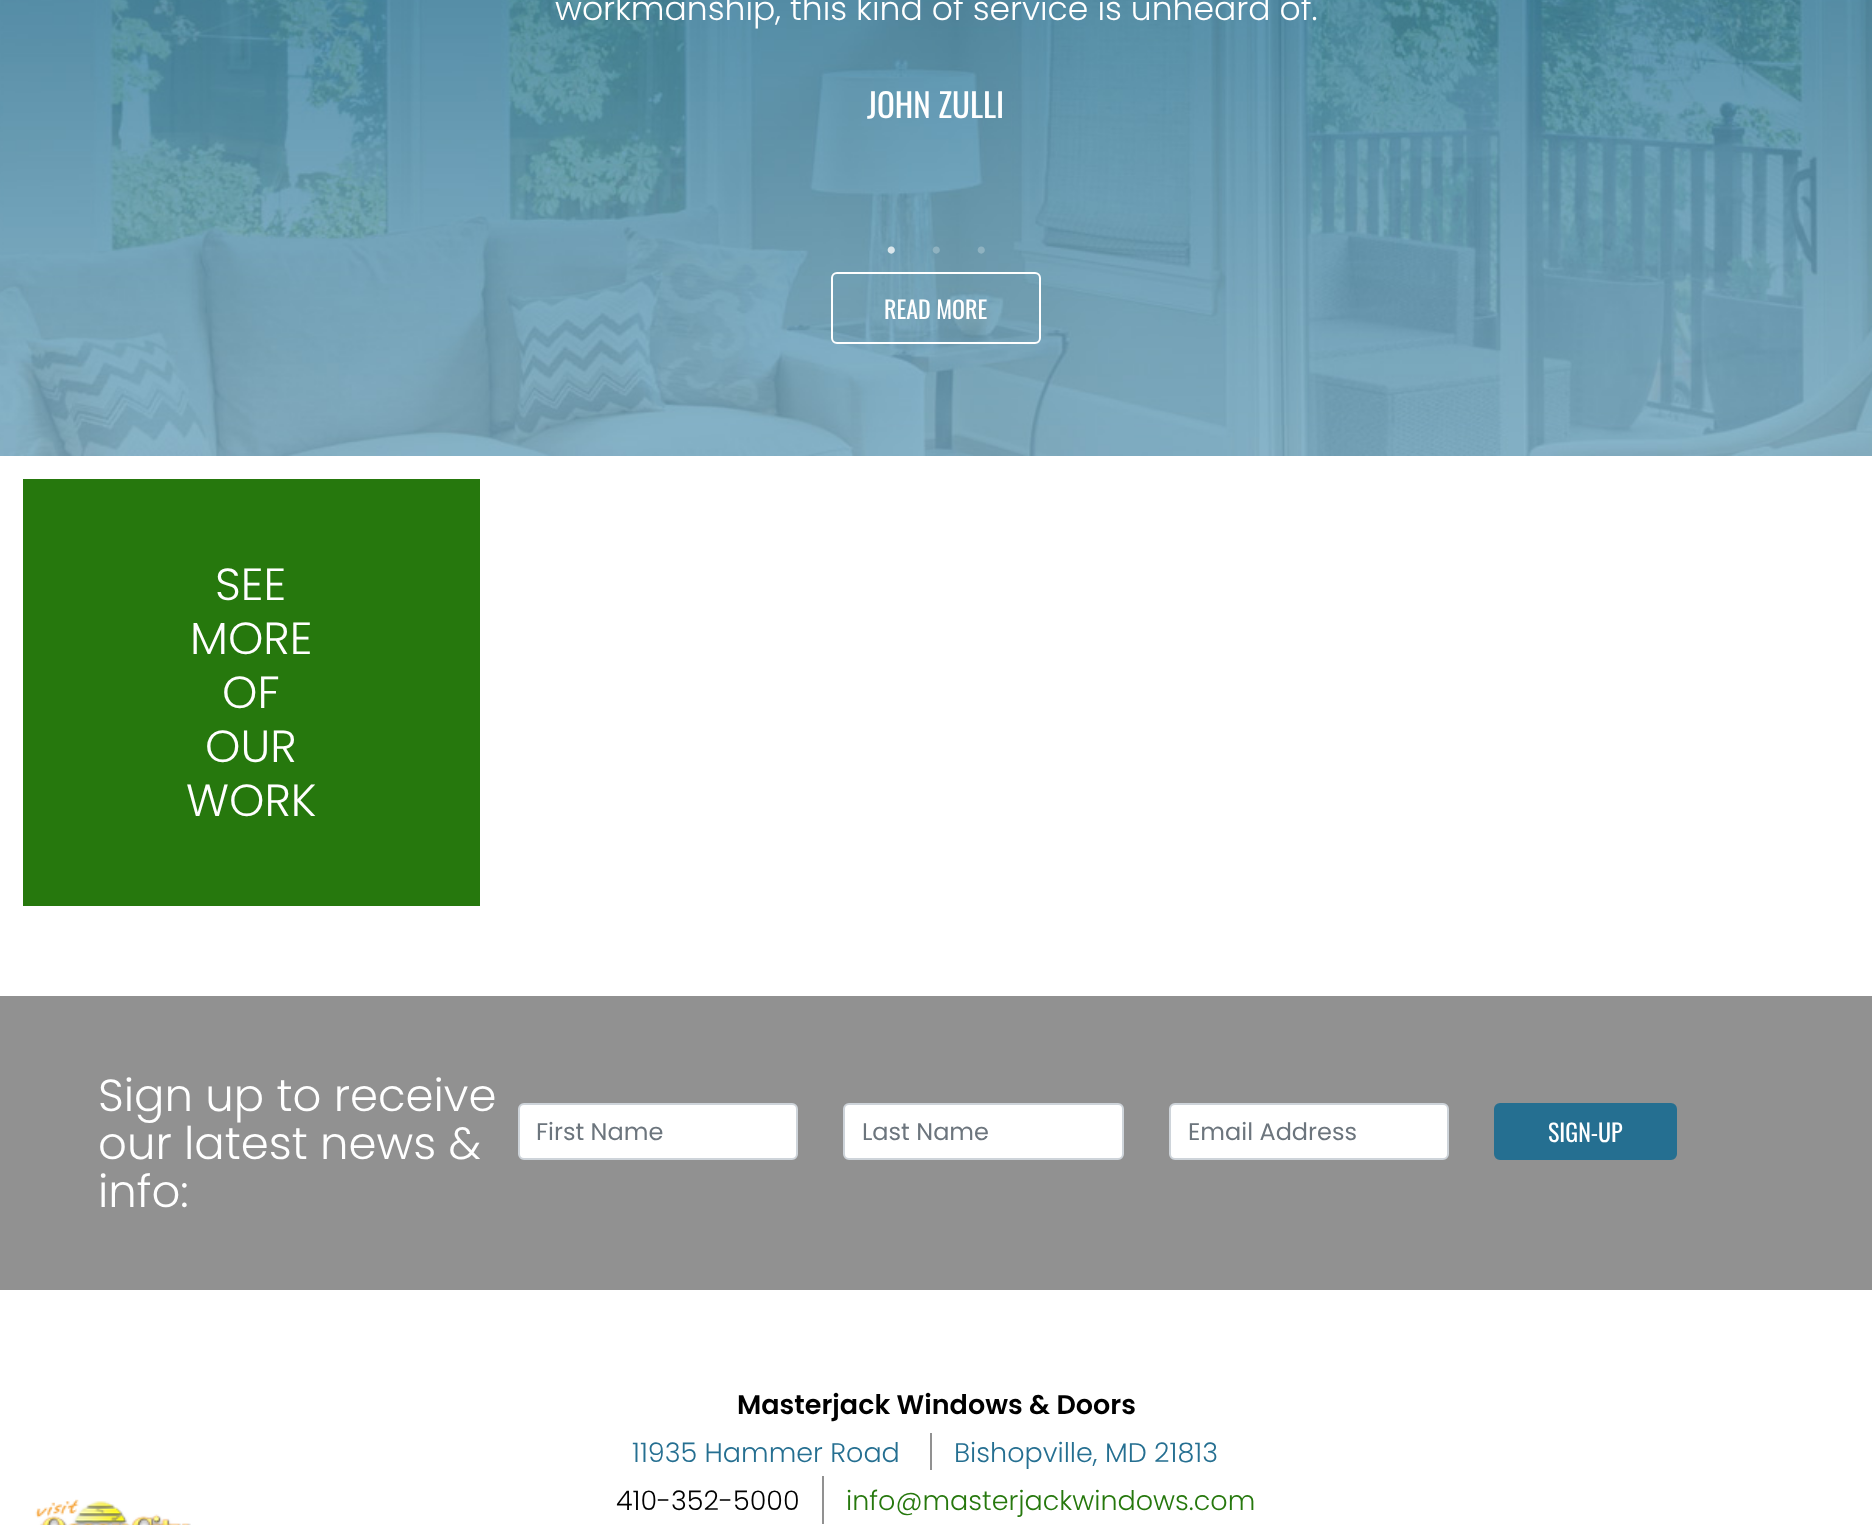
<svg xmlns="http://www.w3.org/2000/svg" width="1872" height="1525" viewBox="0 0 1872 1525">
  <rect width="100%" height="100%" fill="#fff"/>
  <image x="0" y="0" width="1872" height="456" href="img/1.png"/>
  <rect x="832" y="273" width="208" height="70" rx="5" fill="none" stroke="#fff" stroke-width="2"/>
  <path d="M23 479h457v427H23z" fill="#26780d"/>
  <path d="M0 996h1872v294H0z" fill="#919191"/>
  <rect x="519" y="1104" width="278" height="55" rx="5" fill="#fff" stroke="#ced4da" stroke-width="2"/>
  <rect x="844" y="1104" width="279" height="55" rx="5" fill="#fff" stroke="#ced4da" stroke-width="2"/>
  <rect x="1170" y="1104" width="278" height="55" rx="5" fill="#fff" stroke="#ced4da" stroke-width="2"/>
  <rect x="1495" y="1104" width="181" height="55" rx="5" fill="#256f91" stroke="#256f91" stroke-width="2"/>
  <image x="35" y="1499" width="156" height="26" href="img/2.png"/>
  <path d="M930 1433h2v37H930z" fill="#919191"/>
  <path d="M822 1476h2v48H822z" fill="#919191"/>
  <text x="555" y="20" font-family="Poppins" font-size="33" font-weight="300" fill="#fff">workmanship, this kind of service is unheard of.</text>
  <text x="867" y="118" font-family="Oswald" font-size="33" fill="#fff">JOHN ZULLI</text>
  <text x="886" y="260" font-family="Liberation Serif" font-size="30" fill="#dbe7ec">•</text>
  <g font-family="Liberation Serif" font-size="30" fill="#8fb2c0">
    <text x="931" y="260">•</text>
    <text x="976" y="260">•</text>
  </g>
  <text x="884" y="319" font-family="Oswald" font-size="24" fill="#fff">READ MORE</text>
  <g font-family="Poppins" font-size="45" font-weight="300" fill="#fff">
    <text x="215" y="600">SEE</text>
    <text x="190" y="654">MORE</text>
    <text x="222" y="708">OF</text>
    <text x="205" y="762">OUR</text>
    <text x="186" y="816">WORK</text>
    <text x="98" y="1111">Sign up to receive</text>
    <text x="98" y="1159">our latest news &amp;</text>
    <text x="98" y="1207">info:</text>
  </g>
  <g font-family="Poppins" font-size="24" fill="#6c757d">
    <text x="536" y="1140">First Name</text>
    <text x="862" y="1140">Last Name</text>
    <text x="1188" y="1140">Email Address</text>
  </g>
  <text x="1548" y="1142" font-family="Oswald" font-size="24" fill="#fff">SIGN-UP</text>
  <text x="737" y="1414" font-family="Poppins" font-size="27" font-weight="600" fill="#000">Masterjack Windows &amp; Doors</text>
  <g font-family="Poppins" font-size="27" font-weight="300" fill="#256f91">
    <text x="632" y="1462">11935 Hammer Road</text>
    <text x="954" y="1462">Bishopville, MD 21813</text>
  </g>
  <text x="616" y="1510" font-family="Poppins" font-size="27" font-weight="300" fill="#000">410-352-5000</text>
  <text x="846" y="1510" font-family="Poppins" font-size="27" font-weight="300" fill="#26780d">info@masterjackwindows.com</text>
</svg>
